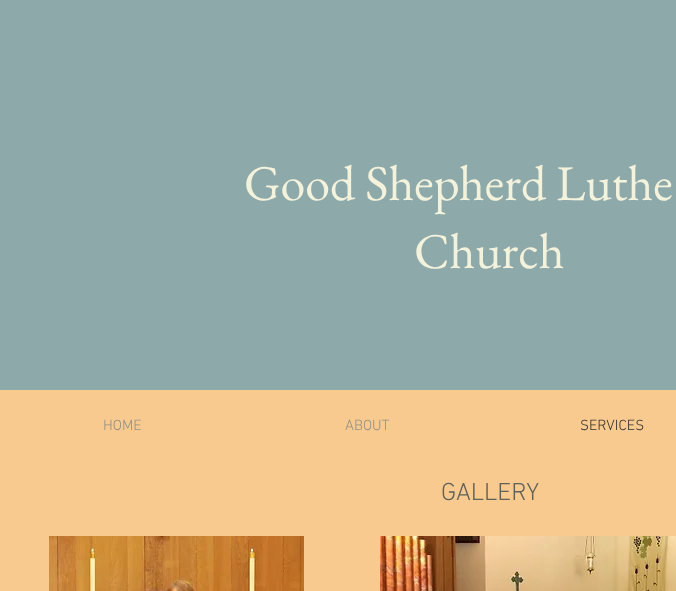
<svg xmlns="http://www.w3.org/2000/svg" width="676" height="591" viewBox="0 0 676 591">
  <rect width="100%" height="100%" fill="#f8ca90"/>
  <path d="M0 0h676v390H0z" fill="#8ea9aa"/>
  <image x="49" y="536" width="255" height="55" href="img/1.png"/>
  <image x="380" y="536" width="296" height="55" href="img/2.png"/>
  <g font-family="EB Garamond" font-size="50" fill="#f3f2dc">
    <text x="244" y="200">Good Shepherd Luthe</text>
    <text x="414" y="268">Church</text>
  </g>
  <g font-family="'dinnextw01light'" font-size="15" font-weight="300" fill="#929184">
    <text x="103" y="430">HOME</text>
    <text x="345" y="430">ABOUT</text>
  </g>
  <text x="580" y="430" font-family="'dinnextw01light'" font-size="15" font-weight="300" fill="#31302c">SERVICES</text>
  <text x="441" y="500" font-family="'dinnextw01light'" font-size="25" font-weight="300" fill="#616158">GALLERY</text>
</svg>
